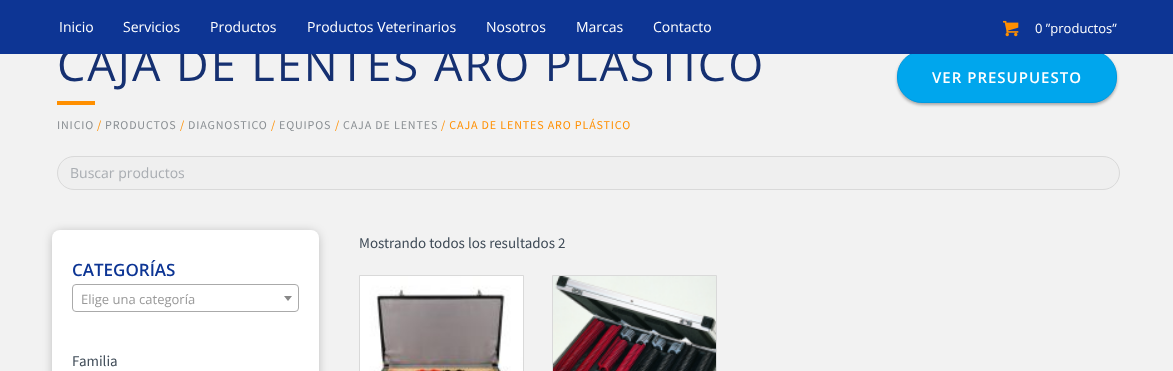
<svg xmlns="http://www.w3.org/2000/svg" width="1173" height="371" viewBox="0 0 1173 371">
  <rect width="100%" height="100%" fill="#f2f2f2"/>
  <path d="M57 101h38v4H57z" fill="#ff8f00"/>
  <rect x="897" y="53" width="220" height="52" rx="25" fill="#0000004d" filter="blur(1.5px)"/>
  <rect x="897.5" y="51.5" width="219" height="51" rx="24.5" fill="#00a6ed" stroke="#009ae1"/>
  <rect x="57.5" y="156.5" width="1062" height="33" rx="16.5" fill="#efefef" stroke="#d9d9d9"/>
  <path d="M359.5 275.5h164v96H359.5z" fill="none" stroke="#d9d9d9"/>
  <image x="360" y="276" width="163" height="95" href="img/2.png"/>
  <path d="M552.5 275.5h164v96H552.5z" fill="none" stroke="#d9d9d9"/>
  <image x="553" y="276" width="163" height="95" href="img/3.png"/>
  <rect x="54" y="233" width="263" height="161" rx="6" fill="#0000004d" filter="blur(5.5px)"/>
  <rect x="52" y="230" width="267" height="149" rx="8" fill="#fff"/>
  <rect x="72.5" y="284.5" width="226" height="27" rx="3.5" fill="none" stroke="#aaa"/>
  <path d="M284 296H292L288 301Z" fill="#888"/>
  <text x="57" y="81" font-family="Open Sans" font-size="45" letter-spacing="2" fill="#153071">CAJA DE LENTES ARO PLÁSTICO</text>
  <path d="M0 0h1173v54H0z" fill="#0d3594"/>
  <g font-family="Open Sans" font-size="14" fill="#fff">
    <text x="653" y="32">Contacto</text>
    <text x="576" y="32">Marcas</text>
    <text x="486" y="32">Nosotros</text>
    <text x="307" y="32">Productos Veterinarios</text>
    <text x="210" y="32">Productos</text>
    <text x="123" y="32">Servicios</text>
    <text x="59" y="32">Inicio</text>
  </g>
  <text x="1035" y="33" font-family="Open Sans" font-size="13" fill="#fff">0 ”productos”</text>
  <image x="1003" y="20" width="16" height="17" href="img/1.png"/>
  <text x="57" y="129" font-family="Source Sans Pro" font-size="12" letter-spacing="0.85" fill="#8a8f93">INICIO</text>
  <text x="97" y="129" font-family="Source Sans Pro" font-size="12" letter-spacing="0.85" fill="#ff8f00">/</text>
  <text x="105" y="129" font-family="Source Sans Pro" font-size="12" letter-spacing="0.85" fill="#8a8f93">PRODUCTOS</text>
  <text x="180" y="129" font-family="Source Sans Pro" font-size="12" letter-spacing="0.85" fill="#ff8f00">/</text>
  <text x="188" y="129" font-family="Source Sans Pro" font-size="12" letter-spacing="0.85" fill="#8a8f93">DIAGNOSTICO</text>
  <text x="271" y="129" font-family="Source Sans Pro" font-size="12" letter-spacing="0.85" fill="#ff8f00">/</text>
  <text x="279" y="129" font-family="Source Sans Pro" font-size="12" letter-spacing="0.85" fill="#8a8f93">EQUIPOS</text>
  <text x="335" y="129" font-family="Source Sans Pro" font-size="12" letter-spacing="0.85" fill="#ff8f00">/</text>
  <text x="343" y="129" font-family="Source Sans Pro" font-size="12" letter-spacing="0.85" fill="#8a8f93">CAJA DE LENTES</text>
  <text x="441" y="129" font-family="Source Sans Pro" font-size="12" letter-spacing="0.85" fill="#ff8f00">/ CAJA DE LENTES ARO PLÁSTICO</text>
  <text x="932" y="83" font-family="Open Sans" font-size="15" font-weight="600" letter-spacing="1" fill="#fff">VER PRESUPUESTO</text>
  <text x="70" y="178" font-family="Open Sans" font-size="14" fill="#a9adb2">Buscar productos</text>
  <text x="359" y="248" font-family="Source Sans Pro" font-size="15" fill="#3f4b57">Mostrando todos los resultados 2</text>
  <text x="72" y="276" font-family="Open Sans" font-size="17" font-weight="600" fill="#0d3594">CATEGORÍAS</text>
  <text x="81" y="304" font-family="Open Sans" font-size="13" fill="#999">Elige una categoría</text>
  <text x="72" y="366" font-family="Source Sans Pro" font-size="15" fill="#3f4b57">Familia</text>
</svg>
